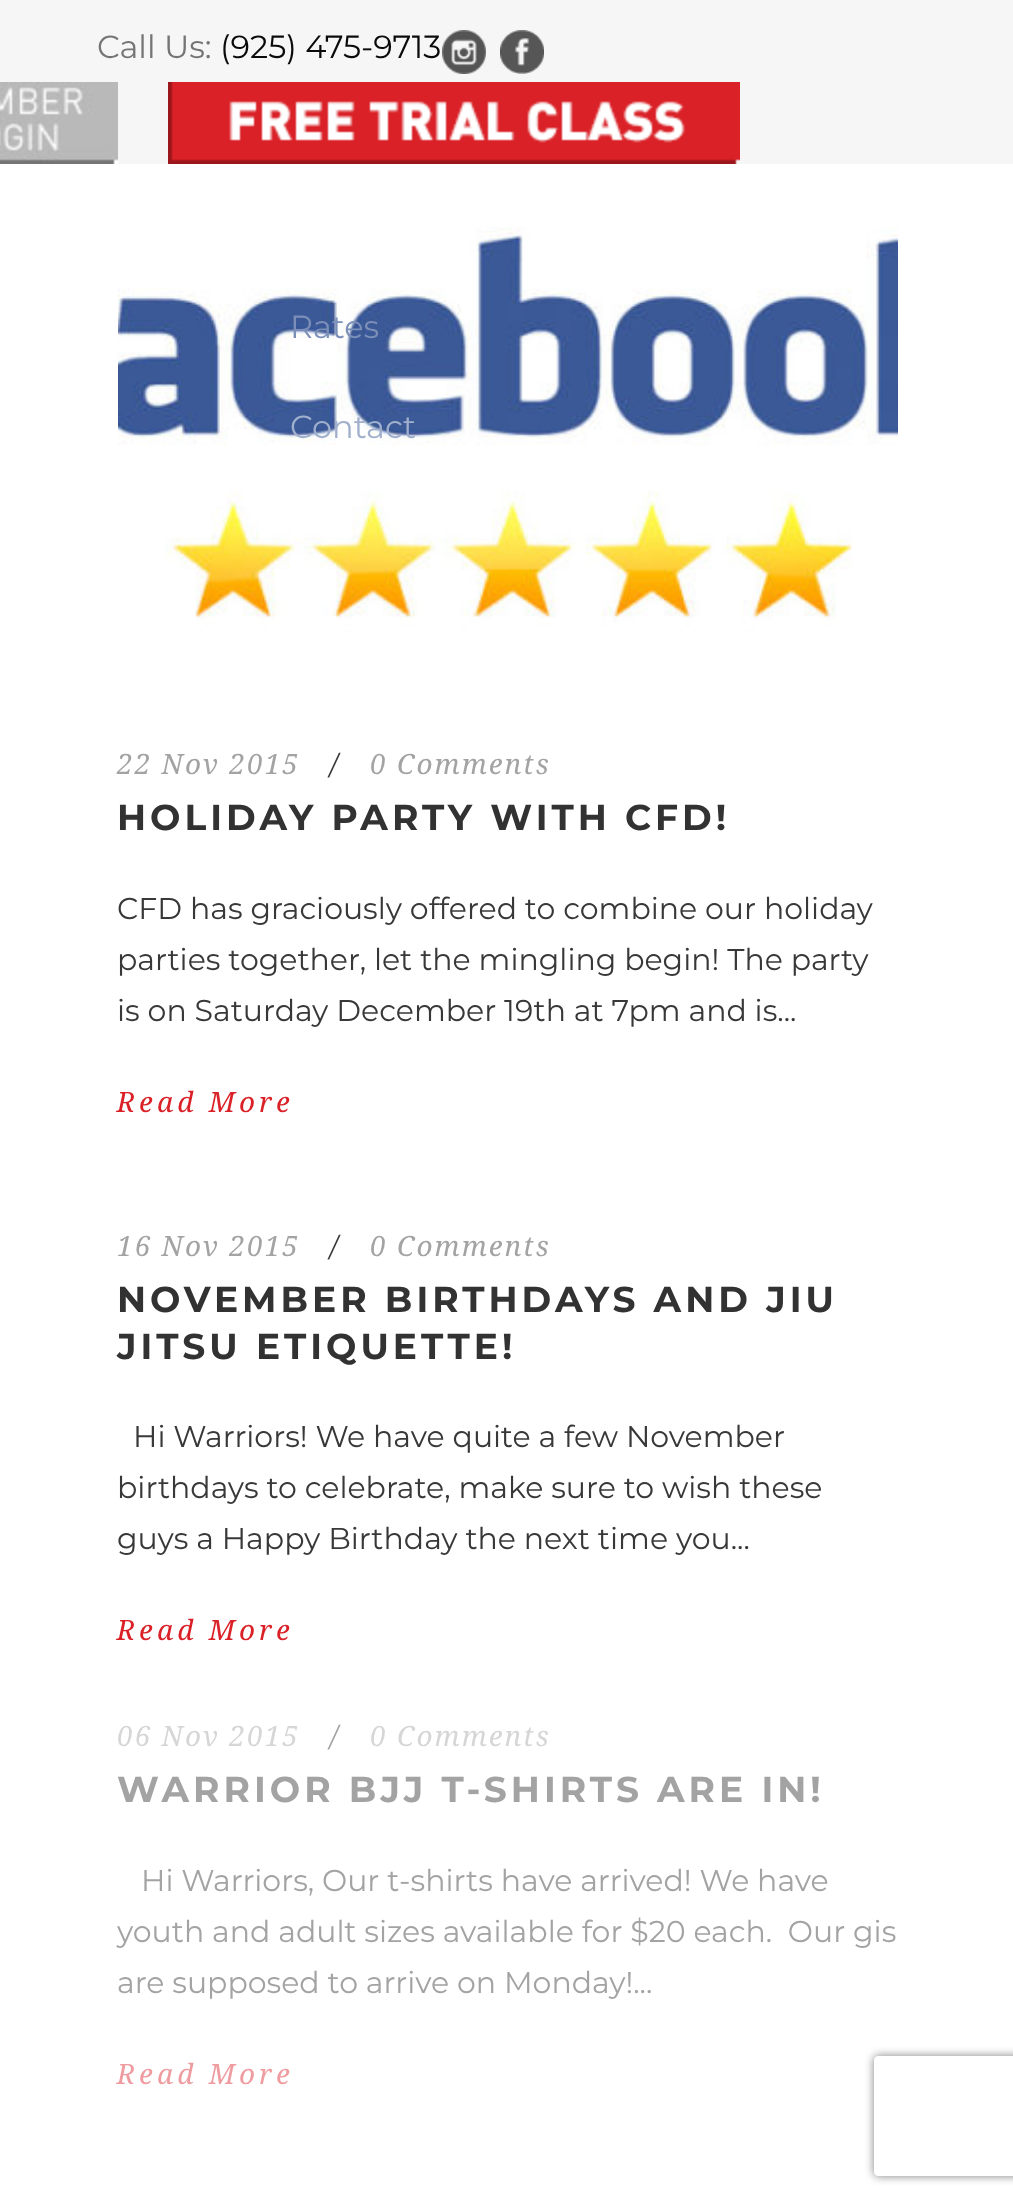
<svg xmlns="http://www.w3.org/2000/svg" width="1013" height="2203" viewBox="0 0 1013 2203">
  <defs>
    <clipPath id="clip1"><path d="M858 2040H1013V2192H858ZM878 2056H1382C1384 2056 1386 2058 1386 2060V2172C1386 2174 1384 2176 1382 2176H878C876 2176 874 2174 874 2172V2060C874 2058 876 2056 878 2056Z" clip-rule="evenodd"/></clipPath>
  </defs>
  <rect width="100%" height="100%" fill="#fff"/>
  <path d="M0 0h1013v164H0z" fill="#f6f6f6"/>
  <image x="442" y="30" width="44" height="44" href="img/1.png"/>
  <image x="500" y="30" width="44" height="44" href="img/2.png"/>
  <image x="0" y="82" width="118" height="82" href="img/3.png"/>
  <image x="168" y="82" width="572" height="82" href="img/4.png"/>
  <image x="118" y="164" width="780" height="522" href="img/5.png"/>
  <g clip-path="url(#clip1)">
    <rect x="874" y="2056" width="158" height="120" rx="4" fill="#808080" filter="blur(5px)"/>
  </g>
  <text x="97" y="58" font-family="Montserrat" font-size="32" fill="#757575">Call Us:</text>
  <text x="220" y="58" font-family="Montserrat" font-size="32" fill="#0a0a0a">(925) 475-9713</text>
  <text x="290" y="338" font-family="Montserrat" font-size="32" fill="#7b8fb8">Rates</text>
  <text x="290" y="438" font-family="Montserrat" font-size="32" fill="#a0afcc">Contact</text>
  <text x="117" y="774" font-family="Droid Serif" font-size="28" font-style="italic" letter-spacing="2" fill="#a3a3a3">22 Nov 2015</text>
  <text x="330" y="774" font-family="Droid Serif" font-size="28" font-style="italic" letter-spacing="2" fill="#383838">/</text>
  <text x="370" y="774" font-family="Droid Serif" font-size="28" font-style="italic" letter-spacing="2" fill="#a3a3a3">0 Comments</text>
  <text x="117" y="830" font-family="Montserrat" font-size="36" font-weight="bold" letter-spacing="4" fill="#323232">HOLIDAY PARTY WITH CFD!</text>
  <g font-family="Montserrat" font-size="30" fill="#383838">
    <text x="117" y="919">CFD has graciously offered to combine our holiday</text>
    <text x="117" y="970">parties together, let the mingling begin! The party</text>
    <text x="117" y="1021">is on Saturday December 19th at 7pm and is...</text>
  </g>
  <text x="117" y="1112" font-family="Droid Serif" font-size="28" font-style="italic" letter-spacing="4" fill="#da2128">Read More</text>
  <text x="117" y="1256" font-family="Droid Serif" font-size="28" font-style="italic" letter-spacing="2" fill="#a3a3a3">16 Nov 2015</text>
  <text x="330" y="1256" font-family="Droid Serif" font-size="28" font-style="italic" letter-spacing="2" fill="#383838">/</text>
  <text x="370" y="1256" font-family="Droid Serif" font-size="28" font-style="italic" letter-spacing="2" fill="#a3a3a3">0 Comments</text>
  <g font-family="Montserrat" font-size="36" font-weight="bold" letter-spacing="4" fill="#323232">
    <text x="117" y="1312">NOVEMBER BIRTHDAYS AND JIU</text>
    <text x="117" y="1359">JITSU ETIQUETTE!</text>
  </g>
  <g font-family="Montserrat" font-size="30" fill="#383838">
    <text x="133" y="1447">Hi Warriors! We have quite a few November</text>
    <text x="117" y="1498">birthdays to celebrate, make sure to wish these</text>
    <text x="117" y="1549">guys a Happy Birthday the next time you...</text>
  </g>
  <text x="117" y="1640" font-family="Droid Serif" font-size="28" font-style="italic" letter-spacing="4" fill="#da2128">Read More</text>
  <text x="117" y="1746" font-family="Droid Serif" font-size="28" font-style="italic" letter-spacing="2" fill="#d6d6d6">06 Nov 2015</text>
  <text x="330" y="1746" font-family="Droid Serif" font-size="28" font-style="italic" letter-spacing="2" fill="#a3a3a3">/</text>
  <text x="370" y="1746" font-family="Droid Serif" font-size="28" font-style="italic" letter-spacing="2" fill="#d6d6d6">0 Comments</text>
  <text x="117" y="1802" font-family="Montserrat" font-size="36" font-weight="bold" letter-spacing="4" fill="#a3a3a3">WARRIOR BJJ T-SHIRTS ARE IN!</text>
  <g font-family="Montserrat" font-size="30" fill="#a3a3a3">
    <text x="141" y="1891">Hi Warriors, Our t-shirts have arrived! We have</text>
    <text x="117" y="1942" xml:space="preserve">youth and adult sizes available for $20 each.  Our gis</text>
    <text x="117" y="1993">are supposed to arrive on Monday!...</text>
  </g>
  <text x="117" y="2084" font-family="Droid Serif" font-size="28" font-style="italic" letter-spacing="4" fill="#ef9ca0">Read More</text>
</svg>
